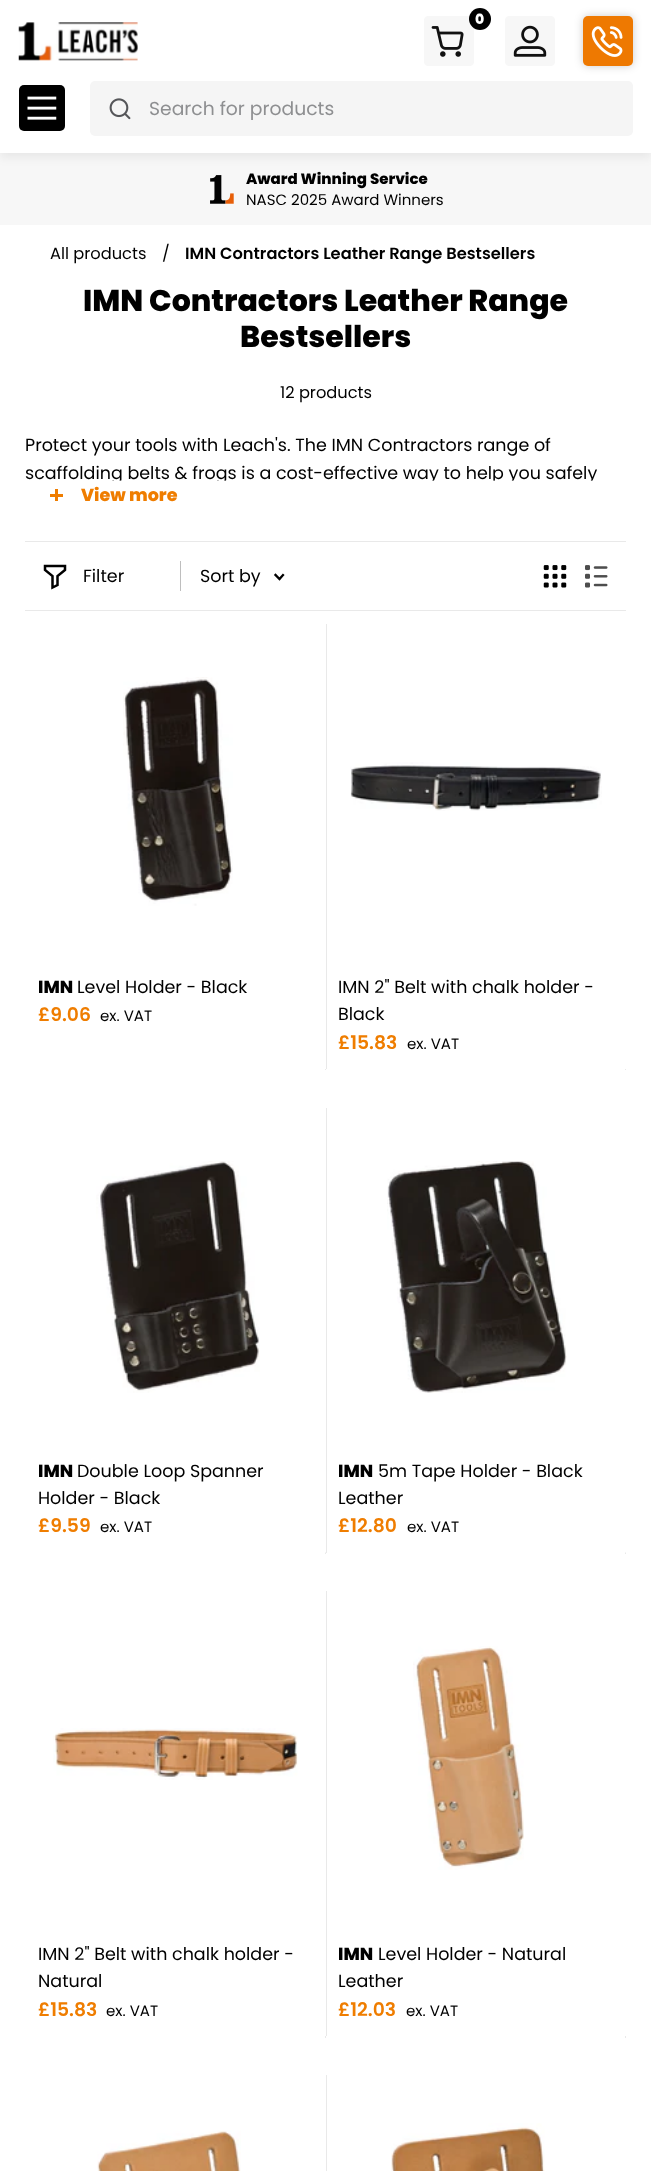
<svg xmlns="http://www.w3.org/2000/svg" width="651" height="2171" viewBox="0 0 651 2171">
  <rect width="100%" height="100%" fill="#fff"/>
  <path d="M0 153h651v72H0z" fill="#f7f7f7"/>
  <path d="M0 5h651v153H0z" fill="#0000000f" filter="blur(5px)"/>
  <path d="M0 0h651v153H0z" fill="#fff"/>
  <image x="424" y="16" width="50" height="50" href="img/1.png"/>
  <circle cx="480" cy="19" r="11" fill="#000"/>
  <image x="505" y="16" width="50" height="50" href="img/2.png"/>
  <rect x="583" y="16" width="50" height="50" rx="5" fill="#00000033" filter="blur(4px)"/>
  <rect x="583" y="16" width="50" height="50" rx="5" fill="#ee7901"/>
  <image x="591" y="26" width="32" height="31" href="img/3.png"/>
  <image x="18" y="22" width="120" height="39" href="img/4.png"/>
  <rect x="19" y="85" width="46" height="46" rx="5" fill="#000"/>
  <image x="27" y="96" width="30" height="24" href="img/5.png"/>
  <rect x="90" y="81" width="543" height="55" rx="5" fill="#f5f5f5"/>
  <image x="109" y="98" width="22" height="22" href="img/6.png"/>
  <image x="210" y="175" width="24" height="29" href="img/7.png"/>
  <path d="M55 489h3v12H55z" fill="#ef7d00"/>
  <path d="M50 494h13v3H50z" fill="#ef7d00"/>
  <path d="M25 541h601v1H25z" fill="#e9e9e9"/>
  <path d="M25 610h601v1H25z" fill="#e9e9e9"/>
  <path d="M65 570L57.5 576V585L52.5 587.5V576L45 570V566H65Z" fill="none" stroke="#000" stroke-width="2.5" stroke-linecap="square"/>
  <path d="M180 561h1v30H180z" fill="#bebebe"/>
  <path d="M283 575L279.5 579L275.5 575" fill="none" stroke="#000" stroke-width="2.3" stroke-linecap="square"/>
  <image x="543" y="565" width="24" height="23" href="img/8.png"/>
  <image x="585" y="565" width="23" height="23" href="img/9.png"/>
  <image x="123" y="677" width="110" height="229" href="img/10.png"/>
  <path d="M325 1069V1070H326V1069Z" fill="#e9e9e9"/>
  <path d="M326 624h1v445H326z" fill="#e9e9e9"/>
  <image x="350" y="762" width="252" height="49" href="img/11.png"/>
  <path d="M625 1069V1070H626V1069Z" fill="#e9e9e9"/>
  <image x="96" y="1161" width="164" height="232" href="img/12.png"/>
  <path d="M325 1552.5V1554H326V1552.5Z" fill="#e9e9e9"/>
  <path d="M326 1552V1553H327V1108H326Z" fill="#e9e9e9"/>
  <image x="387" y="1161" width="180" height="232" href="img/13.png"/>
  <path d="M625 1552.5V1554H626V1552.5Z" fill="#e9e9e9"/>
  <image x="53" y="1728" width="245" height="52" href="img/14.png"/>
  <path d="M325 2036V2038H326V2036Z" fill="#e9e9e9"/>
  <path d="M326 1591h1v445H326z" fill="#e9e9e9"/>
  <image x="413" y="1646" width="111" height="224" href="img/15.png"/>
  <path d="M625 2036V2038H626V2036Z" fill="#e9e9e9"/>
  <image x="97" y="2130" width="144" height="41" href="img/16.png"/>
  <path d="M326 2075h1v96H326z" fill="#e9e9e9"/>
  <image x="391" y="2123" width="154" height="48" href="img/17.png"/>
  <text x="475" y="24" font-family="Poppins" font-size="14" font-weight="800" fill="#fff">0</text>
  <text x="149" y="115" font-family="Poppins" font-size="18.75" fill="#8e8f91">Search for products</text>
  <text x="246" y="184" font-family="Poppins" font-size="15" font-weight="800" fill="#000">Award Winning Service</text>
  <text x="246" y="205" font-family="Poppins" font-size="15" fill="#000">NASC 2025 Award Winners</text>
  <g font-family="Poppins" font-size="16.25" fill="#000">
    <text x="50" y="259">All products</text>
    <text x="162" y="259">/</text>
  </g>
  <text x="185" y="259" font-family="Poppins" font-size="16.25" font-weight="600" fill="#000">IMN Contractors Leather Range Bestsellers</text>
  <g font-family="Poppins" font-size="30" font-weight="800" fill="#000">
    <text x="83" y="311">IMN Contractors Leather Range</text>
    <text x="240" y="347">Bestsellers</text>
  </g>
  <text x="280" y="398" font-family="Poppins" font-size="16.25" fill="#000">12 products</text>
  <g font-family="Poppins" font-size="17.5" fill="#000">
    <text x="25" y="451">Protect your tools with Leach's. The IMN Contractors range of</text>
    <text x="25" y="479">scaffolding belts &amp; frogs is a cost-effective way to help you safely</text>
  </g>
  <path d="M112 481h481v3H112z" fill="#fff"/>
  <path d="M112 480h481v1H112z" fill="#ffffff66"/>
  <text x="81" y="501" font-family="Poppins" font-size="17.5" font-weight="800" fill="#ef7d00">View more</text>
  <g font-family="Poppins" font-size="17.5" fill="#000">
    <text x="83" y="582">Filter</text>
    <text x="200" y="582">Sort by</text>
  </g>
  <text x="38" y="993" font-family="Poppins" font-size="17.5" font-weight="800" fill="#000">IMN</text>
  <text x="77" y="993" font-family="Poppins" font-size="17.5" fill="#000">Level Holder - Black</text>
  <text x="38" y="1021" font-family="Poppins" font-size="18.75" font-weight="600" fill="#ef7d00">£9.06</text>
  <text x="100" y="1021" font-family="Poppins" font-size="15" fill="#000">ex. VAT</text>
  <g font-family="Poppins" font-size="17.5" fill="#000">
    <text x="338" y="993">IMN 2" Belt with chalk holder -</text>
    <text x="338" y="1020">Black</text>
  </g>
  <text x="338" y="1049" font-family="Poppins" font-size="18.75" font-weight="600" fill="#ef7d00">£15.83</text>
  <text x="407" y="1049" font-family="Poppins" font-size="15" fill="#000">ex. VAT</text>
  <text x="38" y="1477" font-family="Poppins" font-size="17.5" font-weight="800" fill="#000">IMN</text>
  <g font-family="Poppins" font-size="17.5" fill="#000">
    <text x="77" y="1477">Double Loop Spanner</text>
    <text x="38" y="1504">Holder - Black</text>
  </g>
  <text x="38" y="1532" font-family="Poppins" font-size="18.75" font-weight="600" fill="#ef7d00">£9.59</text>
  <text x="100" y="1532" font-family="Poppins" font-size="15" fill="#000">ex. VAT</text>
  <text x="338" y="1477" font-family="Poppins" font-size="17.5" font-weight="800" fill="#000">IMN</text>
  <g font-family="Poppins" font-size="17.5" fill="#000">
    <text x="378" y="1477">5m Tape Holder - Black</text>
    <text x="338" y="1504">Leather</text>
  </g>
  <text x="338" y="1532" font-family="Poppins" font-size="18.75" font-weight="600" fill="#ef7d00">£12.80</text>
  <text x="407" y="1532" font-family="Poppins" font-size="15" fill="#000">ex. VAT</text>
  <g font-family="Poppins" font-size="17.5" fill="#000">
    <text x="38" y="1960">IMN 2" Belt with chalk holder -</text>
    <text x="38" y="1987">Natural</text>
  </g>
  <text x="38" y="2016" font-family="Poppins" font-size="18.75" font-weight="600" fill="#ef7d00">£15.83</text>
  <text x="106" y="2016" font-family="Poppins" font-size="15" fill="#000">ex. VAT</text>
  <text x="338" y="1960" font-family="Poppins" font-size="17.5" font-weight="800" fill="#000">IMN</text>
  <g font-family="Poppins" font-size="17.5" fill="#000">
    <text x="378" y="1960">Level Holder - Natural</text>
    <text x="338" y="1987">Leather</text>
  </g>
  <text x="338" y="2016" font-family="Poppins" font-size="18.75" font-weight="600" fill="#ef7d00">£12.03</text>
  <text x="406" y="2016" font-family="Poppins" font-size="15" fill="#000">ex. VAT</text>
</svg>
